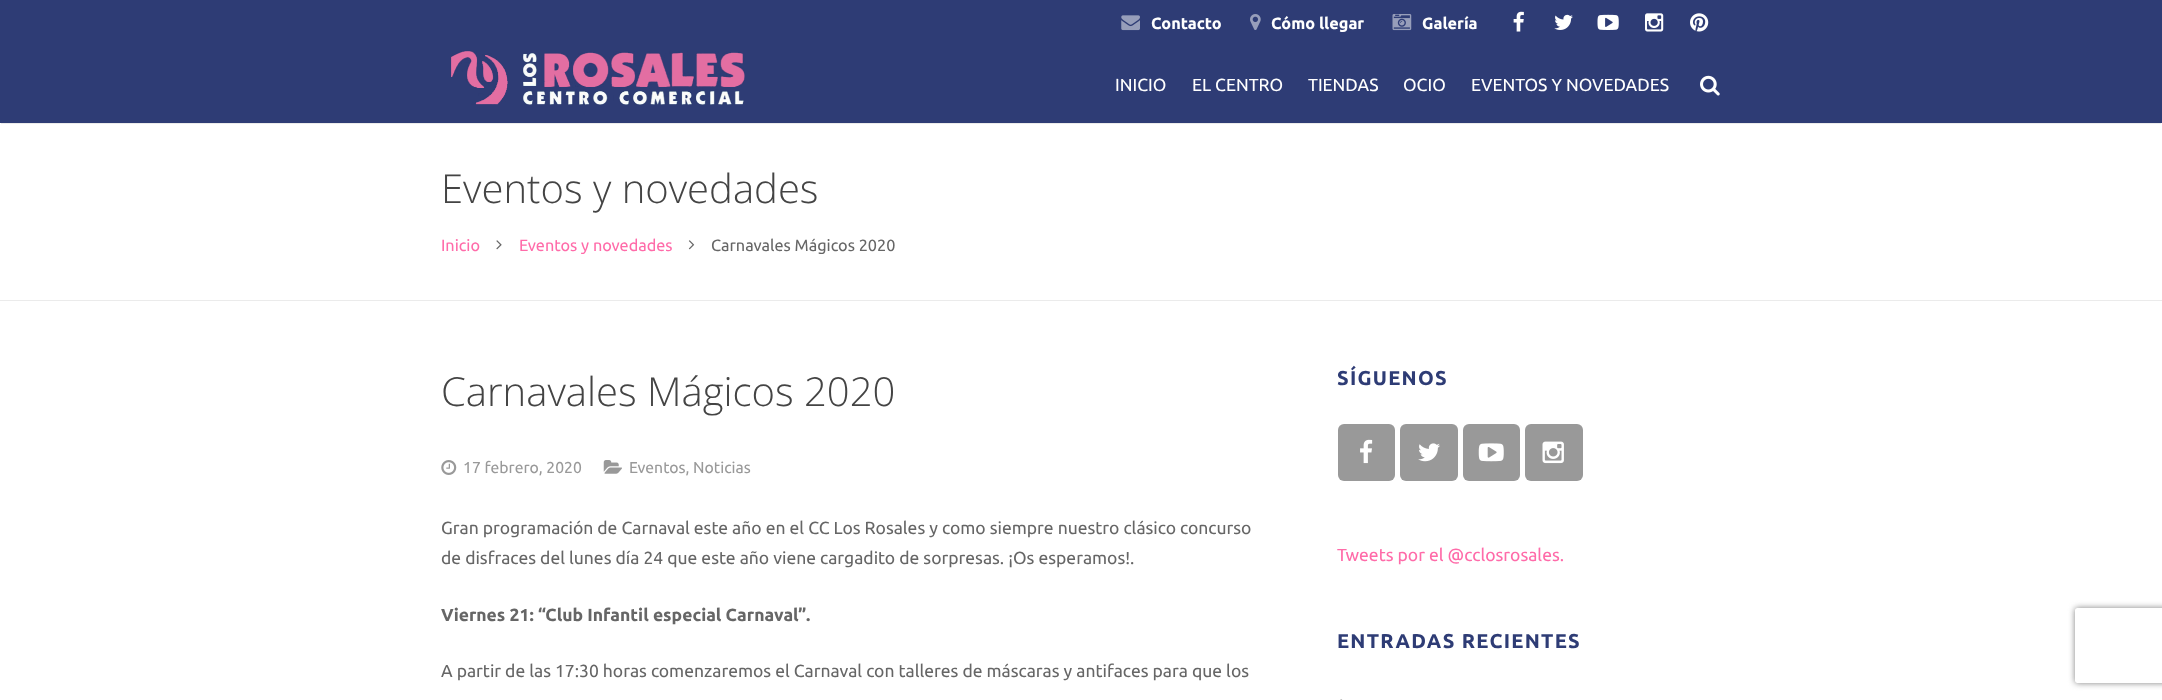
<svg xmlns="http://www.w3.org/2000/svg" width="2162" height="700" viewBox="0 0 2162 700">
  <defs>
    <clipPath id="clip1"><path d="M0 0h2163v301H0z"/></clipPath>
    <clipPath id="clip2"><path d="M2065 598H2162V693H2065ZM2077.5 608H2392.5C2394 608 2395 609 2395 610.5V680.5C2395 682 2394 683 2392.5 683H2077.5C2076 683 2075 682 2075 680.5V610.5C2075 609 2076 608 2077.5 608Z" clip-rule="evenodd"/></clipPath>
  </defs>
  <rect width="100%" height="100%" fill="#fff"/>
  <path d="M0 0h2162v123H0z" fill="#2e3c75"/>
  <image x="1121" y="15" width="19" height="16" href="img/1.png"/>
  <image x="1250" y="14" width="11" height="16" href="img/2.png"/>
  <image x="1392" y="14" width="20" height="17" href="img/3.png"/>
  <image x="1513" y="11" width="11" height="21" href="img/4.png"/>
  <image x="1554" y="14" width="19" height="16" href="img/5.png"/>
  <image x="1597" y="14" width="22" height="16" href="img/6.png"/>
  <image x="1645" y="13" width="19" height="19" href="img/7.png"/>
  <image x="1690" y="13" width="19" height="19" href="img/8.png"/>
  <path d="M1 123h2160v1H1z" fill="#ebebeb"/>
  <image x="451" y="51" width="294" height="54" href="img/9.png"/>
  <image x="1700" y="75" width="20" height="21" href="img/10.png"/>
  <g clip-path="url(#clip1)">
    <path d="M-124-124H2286V425H-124ZM0-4H2162C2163-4 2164-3 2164-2V299C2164 299 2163 300 2162 300H0C-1 300-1 299-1 299V-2C-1-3-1-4 0-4Z" fill="#ebebeb" fill-rule="evenodd"/>
  </g>
  <image x="496" y="240" width="6" height="10" href="img/11.png"/>
  <image x="688" y="240" width="7" height="10" href="img/12.png"/>
  <image x="441" y="460" width="16" height="15" href="img/13.png"/>
  <image x="603" y="460" width="19" height="14" href="img/14.png"/>
  <rect x="1338" y="424" width="57" height="57" rx="6" fill="#999"/>
  <image x="1360" y="439" width="13" height="25" href="img/15.png"/>
  <rect x="1400" y="424" width="58" height="57" rx="6" fill="#999"/>
  <image x="1418" y="443" width="22" height="19" href="img/16.png"/>
  <rect x="1463" y="424" width="57" height="57" rx="6" fill="#999"/>
  <image x="1478" y="443" width="26" height="19" href="img/17.png"/>
  <rect x="1525" y="424" width="58" height="57" rx="6" fill="#999"/>
  <image x="1542" y="441" width="22" height="23" href="img/18.png"/>
  <image x="1340" y="699" width="3" height="1" href="img/19.png"/>
  <g clip-path="url(#clip2)">
    <rect x="2075" y="608" width="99" height="75" rx="2.5" fill="#808080" filter="blur(3px)"/>
  </g>
  <g font-family="Ubuntu" font-size="16.25" font-weight="bold" fill="#fff">
    <text x="1151" y="29">Contacto</text>
    <text x="1271" y="29">Cómo llegar</text>
    <text x="1422" y="29">Galería</text>
  </g>
  <g font-family="Ubuntu" font-size="17.5" fill="#fff">
    <text x="1115" y="91">INICIO</text>
    <text x="1192" y="91">EL CENTRO</text>
    <text x="1308" y="91">TIENDAS</text>
    <text x="1403" y="91">OCIO</text>
    <text x="1471" y="91">EVENTOS Y NOVEDADES</text>
  </g>
  <text x="441" y="203" font-family="Open Sans" font-size="40" font-weight="300" fill="#444">Eventos y novedades</text>
  <g font-family="Ubuntu" font-size="16.25" fill="#ff6ba9">
    <text x="441" y="251">Inicio</text>
    <text x="519" y="251">Eventos y novedades</text>
  </g>
  <text x="711" y="251" font-family="Ubuntu" font-size="16.25" fill="#666">Carnavales Mágicos 2020</text>
  <text x="441" y="406" font-family="Open Sans" font-size="40" font-weight="300" fill="#444">Carnavales Mágicos 2020</text>
  <g font-family="Ubuntu" font-size="15.75" fill="#999">
    <text x="463" y="473">17 febrero, 2020</text>
    <text x="629" y="473">Eventos, Noticias</text>
  </g>
  <g font-family="Ubuntu" font-size="17.5" fill="#666">
    <text x="441" y="534">Gran programación de Carnaval este año en el CC Los Rosales y como siempre nuestro clásico concurso</text>
    <text x="441" y="564">de disfraces del lunes día 24 que este año viene cargadito de sorpresas. ¡Os esperamos!.</text>
  </g>
  <text x="441" y="621" font-family="Ubuntu" font-size="17.5" font-weight="bold" fill="#666">Viernes 21: “Club Infantil especial Carnaval”.</text>
  <text x="441" y="677" font-family="Ubuntu" font-size="17.5" fill="#666">A partir de las 17:30 horas comenzaremos el Carnaval con talleres de máscaras y antifaces para que los</text>
  <text x="1337" y="385" font-family="Ubuntu" font-size="20" font-weight="bold" letter-spacing="1.25" fill="#2e3c75">SÍGUENOS</text>
  <text x="1337" y="561" font-family="Ubuntu" font-size="17.5" fill="#ff6ba9">Tweets por el @cclosrosales.</text>
  <text x="1337" y="648" font-family="Ubuntu" font-size="20" font-weight="bold" letter-spacing="1.25" fill="#2e3c75">ENTRADAS RECIENTES</text>
</svg>
